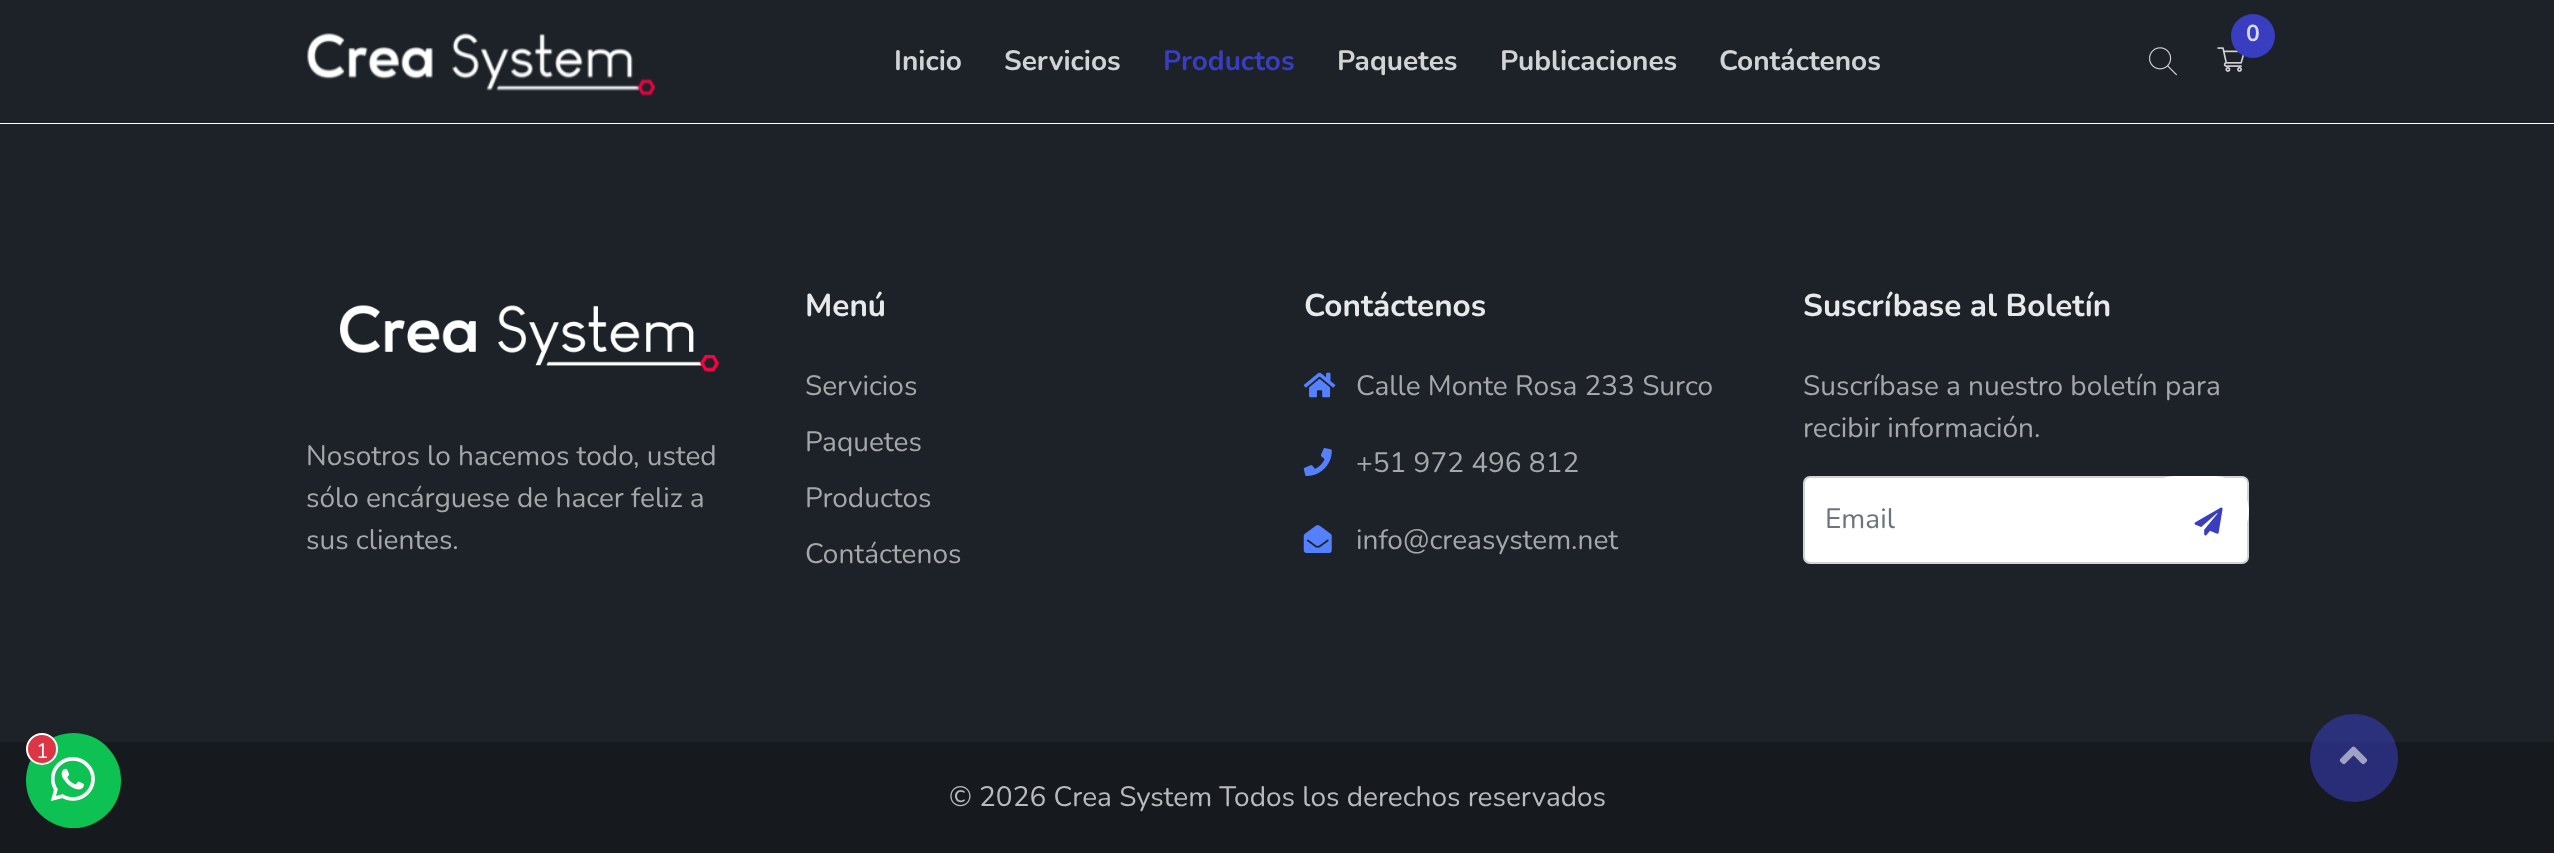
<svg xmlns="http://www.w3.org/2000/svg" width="2554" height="853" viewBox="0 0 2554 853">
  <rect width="100%" height="100%" fill="#fff"/>
  <path d="M0 0h2554v123H0z" fill="#1d2228"/>
  <image x="307" y="33" width="349" height="63" href="img/1.png"/>
  <image x="2217" y="47" width="27" height="25" href="img/2.png"/>
  <circle cx="2253" cy="36" r="22" fill="#393dbf"/>
  <image x="2149" y="47" width="28" height="29" href="img/3.png"/>
  <path d="M0 124h2554v618H0z" fill="#1d2228"/>
  <path d="M0 742h2554v111H0z" fill="#161a1e"/>
  <circle cx="73.5" cy="780.5" r="47.5" fill="#0dc152"/>
  <image x="50" y="757" width="45" height="45" href="img/4.png"/>
  <circle cx="42" cy="749" r="15" fill="#dc3545" stroke="#fff" stroke-width="2"/>
  <image x="340" y="305" width="380" height="67" href="img/5.png"/>
  <image x="1303" y="372" width="33" height="26" href="img/6.png"/>
  <image x="1303" y="448" width="29" height="28" href="img/7.png"/>
  <image x="1303" y="525" width="29" height="28" href="img/8.png"/>
  <rect x="1804" y="477" width="444" height="86" rx="6" fill="#fff" stroke="#ced4da" stroke-width="2"/>
  <rect x="2141" y="477" width="107" height="68" rx="34" fill="none" stroke="#fff" stroke-width="2"/>
  <image x="2194" y="507" width="29" height="29" href="img/9.png"/>
  <circle cx="2354" cy="758" r="44" fill="#393dbf8f"/>
  <image x="2339" y="746" width="29" height="19" href="img/10.png"/>
  <g font-family="Nunito" font-size="28" font-weight="bold" fill="#d2d3d4">
    <text x="894" y="70">Inicio</text>
    <text x="1004" y="70">Servicios</text>
  </g>
  <text x="1163" y="70" font-family="Nunito" font-size="28" font-weight="bold" fill="#393dbf">Productos</text>
  <g font-family="Nunito" font-size="28" font-weight="bold" fill="#d2d3d4">
    <text x="1337" y="70">Paquetes</text>
    <text x="1500" y="70">Publicaciones</text>
    <text x="1719" y="70">Contáctenos</text>
  </g>
  <text x="2246" y="41" font-family="Nunito" font-size="23" font-weight="bold" fill="#d7d8f2">0</text>
  <text x="36" y="758" font-family="Nunito" font-size="21" fill="#fff">1</text>
  <g font-family="Nunito" font-size="28" fill="#a5a7a9">
    <text x="306" y="465">Nosotros lo hacemos todo, usted</text>
    <text x="306" y="507">sólo encárguese de hacer feliz a</text>
    <text x="306" y="549">sus clientes.</text>
  </g>
  <text x="805" y="316" font-family="Nunito" font-size="31.5" font-weight="bold" fill="#e8e9ea">Menú</text>
  <g font-family="Nunito" font-size="28" fill="#a5a7a9">
    <text x="805" y="395">Servicios</text>
    <text x="805" y="451">Paquetes</text>
    <text x="805" y="507">Productos</text>
    <text x="805" y="563">Contáctenos</text>
  </g>
  <text x="1304" y="316" font-family="Nunito" font-size="31.5" font-weight="bold" fill="#e8e9ea">Contáctenos</text>
  <g font-family="Nunito" font-size="28" fill="#a5a7a9">
    <text x="1356" y="395">Calle Monte Rosa 233 Surco</text>
    <text x="1356" y="472">+51 972 496 812</text>
    <text x="1356" y="549">info@creasystem.net</text>
  </g>
  <text x="1803" y="316" font-family="Nunito" font-size="31.5" font-weight="bold" fill="#e8e9ea">Suscríbase al Boletín</text>
  <g font-family="Nunito" font-size="28" fill="#a5a7a9">
    <text x="1803" y="395">Suscríbase a nuestro boletín para</text>
    <text x="1803" y="437">recibir información.</text>
  </g>
  <text x="1825" y="528" font-family="Nunito" font-size="28" fill="#6c757d">Email</text>
  <text x="949" y="806" font-family="Nunito" font-size="28" fill="#b9babc">© 2026 Crea System Todos los derechos reservados</text>
</svg>
